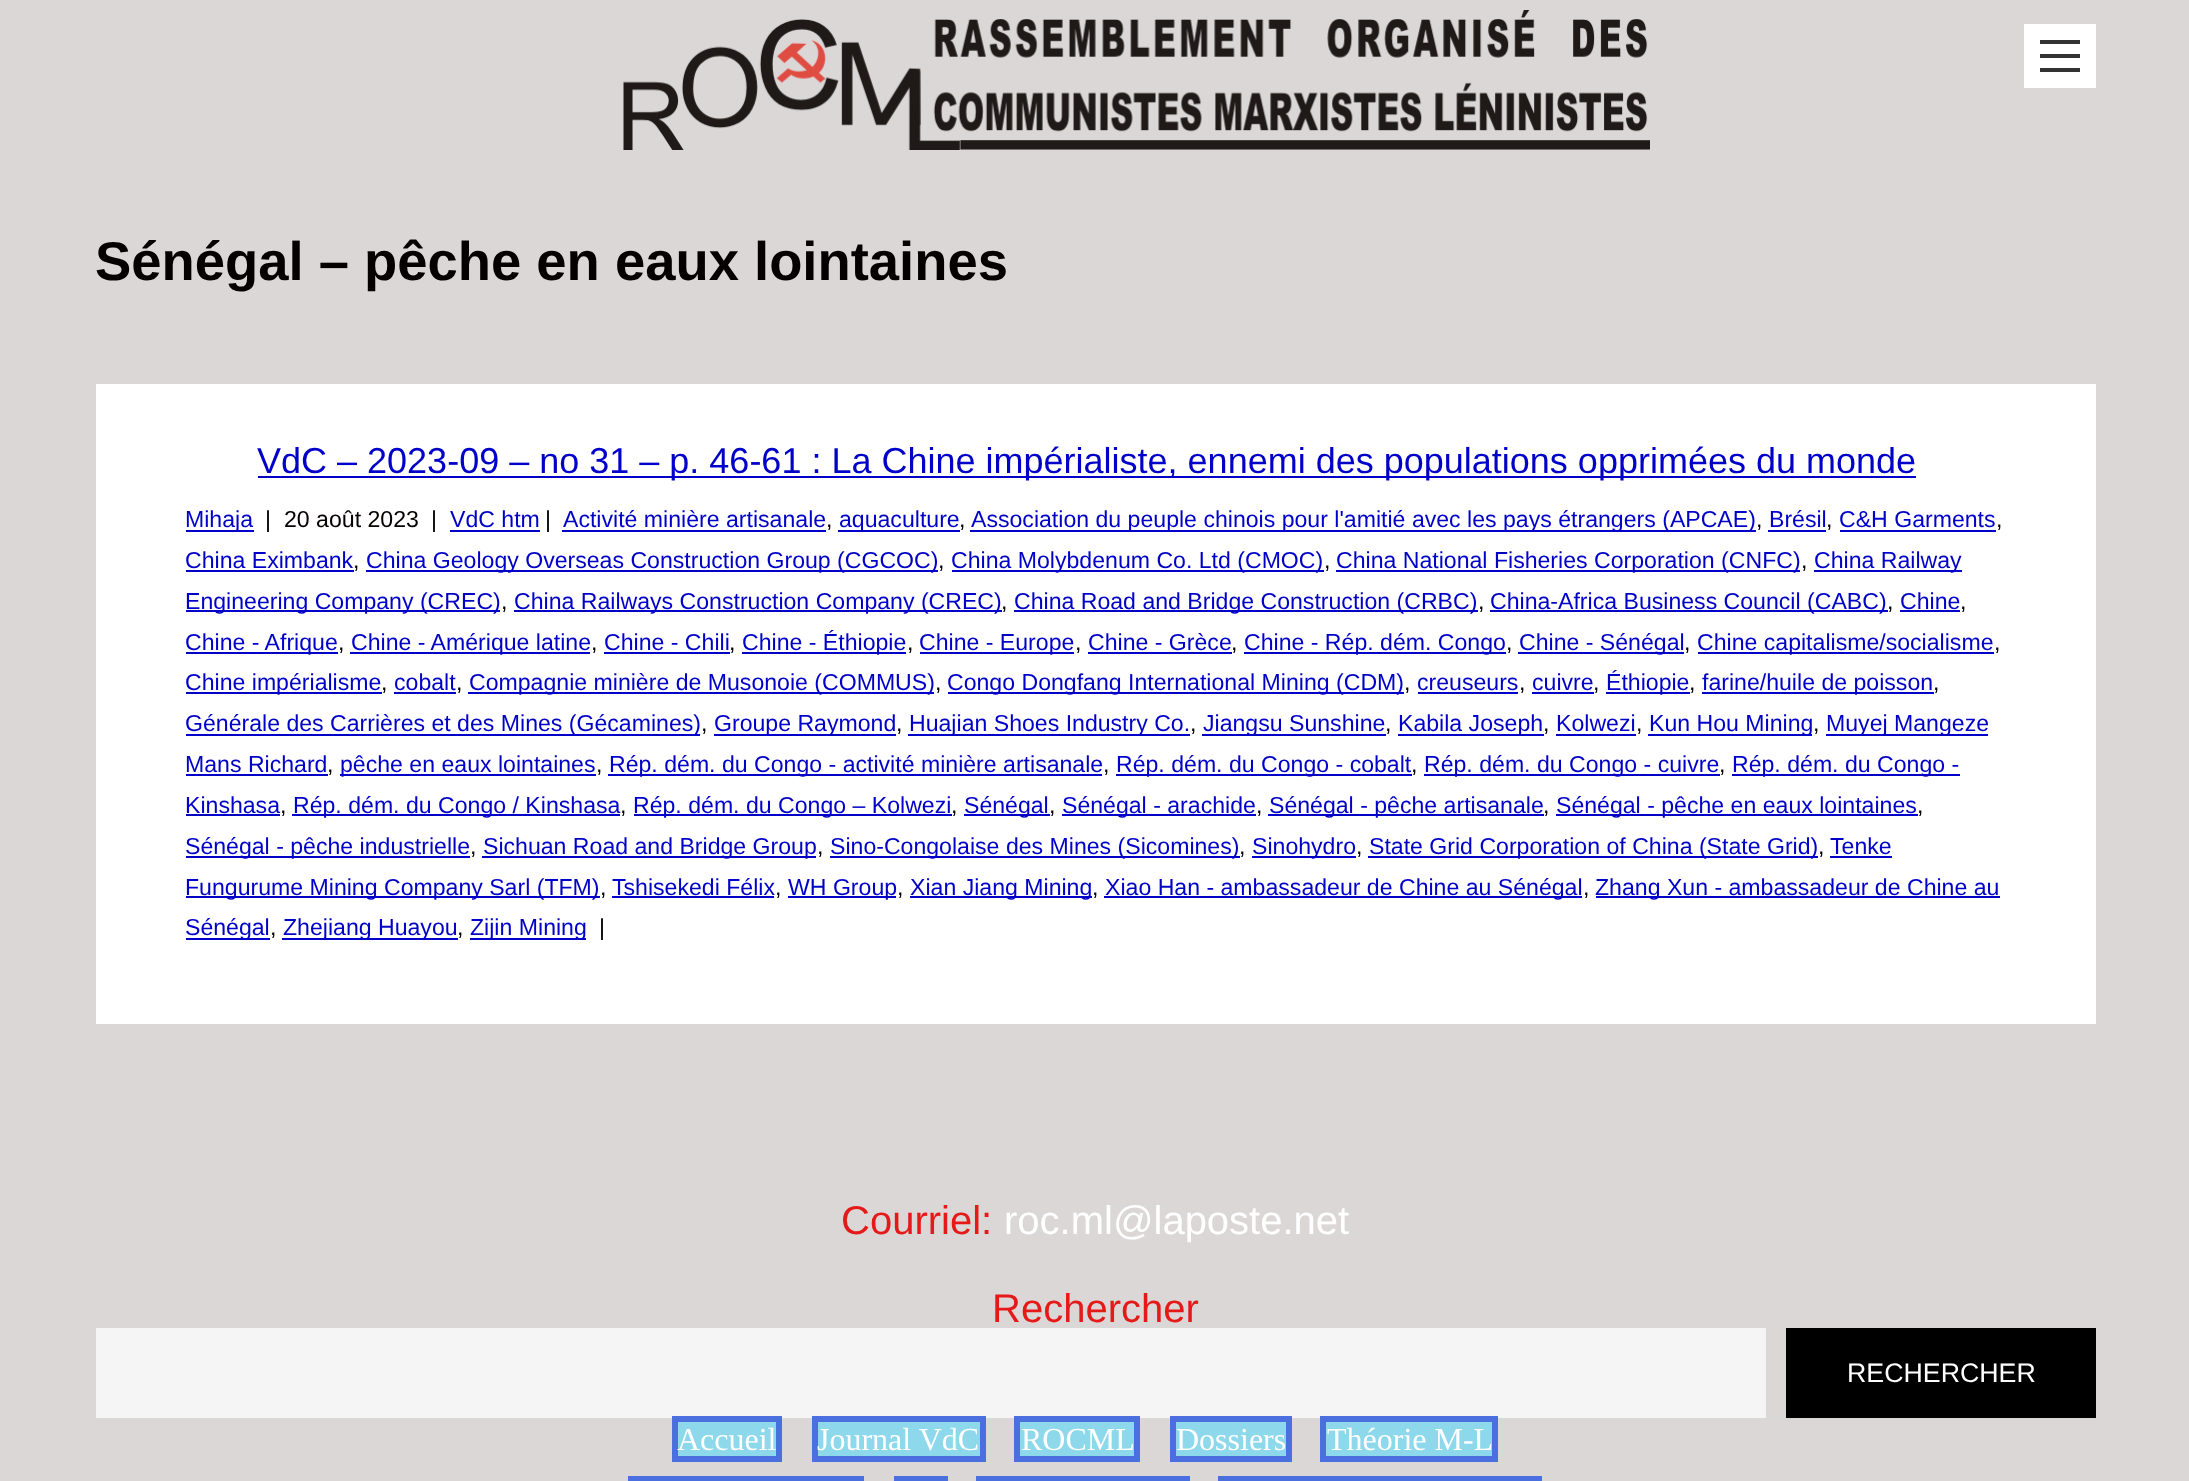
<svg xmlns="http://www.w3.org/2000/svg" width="2189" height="1481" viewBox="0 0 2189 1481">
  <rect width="100%" height="100%" fill="#dbd7d7"/>
  <image x="623" y="10" width="1027" height="140" href="img/1.png"/>
  <path d="M2040 44h40v24H2040z" fill="#fff"/>
  <path d="M2040 68h40v4H2040z" fill="#333"/>
  <path d="M2032 32h56v48H2032z" fill="none" stroke="#fff" stroke-width="16"/>
  <path d="M2040 40h40v4H2040z" fill="#333"/>
  <path d="M2040 54h40v4H2040z" fill="#333"/>
  <path d="M96 384h2000v640H96z" fill="#fff"/>
  <path d="M258 476h1658v2H258z" fill="#0000c8"/>
  <path d="M186 530h68v2H186z" fill="#0000c8"/>
  <path d="M450 530h90v2H450z" fill="#0000c8"/>
  <path d="M562 530h264v2H562z" fill="#0000c8"/>
  <path d="M838 530h122v2H838z" fill="#0000c8"/>
  <path d="M970 530h786v2H970z" fill="#0000c8"/>
  <path d="M1768 530h58v2H1768z" fill="#0000c8"/>
  <path d="M1840 530h156v2H1840z" fill="#0000c8"/>
  <path d="M186 570h168v2H186z" fill="#0000c8"/>
  <path d="M366 570h572v2H366z" fill="#0000c8"/>
  <path d="M952 570h372v2H952z" fill="#0000c8"/>
  <path d="M1336 570h464v2H1336z" fill="#0000c8"/>
  <path d="M1814 570h148v2H1814z" fill="#0000c8"/>
  <path d="M186 610h314v2H186z" fill="#0000c8"/>
  <path d="M514 610h488v2H514z" fill="#0000c8"/>
  <path d="M1014 610h464v2H1014z" fill="#0000c8"/>
  <path d="M1490 610h398v2H1490z" fill="#0000c8"/>
  <path d="M1900 610h60v2H1900z" fill="#0000c8"/>
  <path d="M186 652h152v2H186z" fill="#0000c8"/>
  <path d="M350 652h240v2H350z" fill="#0000c8"/>
  <path d="M604 652h126v2H604z" fill="#0000c8"/>
  <path d="M742 652h164v2H742z" fill="#0000c8"/>
  <path d="M920 652h154v2H920z" fill="#0000c8"/>
  <path d="M1088 652h144v2H1088z" fill="#0000c8"/>
  <path d="M1244 652h262v2H1244z" fill="#0000c8"/>
  <path d="M1518 652h166v2H1518z" fill="#0000c8"/>
  <path d="M1698 652h296v2H1698z" fill="#0000c8"/>
  <path d="M186 692h196v2H186z" fill="#0000c8"/>
  <path d="M394 692h62v2H394z" fill="#0000c8"/>
  <path d="M468 692h466v2H468z" fill="#0000c8"/>
  <path d="M948 692h456v2H948z" fill="#0000c8"/>
  <path d="M1418 692h100v2H1418z" fill="#0000c8"/>
  <path d="M1532 692h62v2H1532z" fill="#0000c8"/>
  <path d="M1606 692h84v2H1606z" fill="#0000c8"/>
  <path d="M1702 692h232v2H1702z" fill="#0000c8"/>
  <path d="M186 734h514v2H186z" fill="#0000c8"/>
  <path d="M714 734h182v2H714z" fill="#0000c8"/>
  <path d="M908 734h282v2H908z" fill="#0000c8"/>
  <path d="M1202 734h184v2H1202z" fill="#0000c8"/>
  <path d="M1398 734h146v2H1398z" fill="#0000c8"/>
  <path d="M1556 734h80v2H1556z" fill="#0000c8"/>
  <path d="M1648 734h164v2H1648z" fill="#0000c8"/>
  <path d="M1826 734h162v2H1826z" fill="#0000c8"/>
  <path d="M186 774h142v2H186z" fill="#0000c8"/>
  <path d="M340 774h256v2H340z" fill="#0000c8"/>
  <path d="M608 774h494v2H608z" fill="#0000c8"/>
  <path d="M1116 774h296v2H1116z" fill="#0000c8"/>
  <path d="M1424 774h296v2H1424z" fill="#0000c8"/>
  <path d="M1732 774h228v2H1732z" fill="#0000c8"/>
  <path d="M186 814h94v2H186z" fill="#0000c8"/>
  <path d="M292 814h328v2H292z" fill="#0000c8"/>
  <path d="M634 814h318v2H634z" fill="#0000c8"/>
  <path d="M964 814h86v2H964z" fill="#0000c8"/>
  <path d="M1062 814h194v2H1062z" fill="#0000c8"/>
  <path d="M1268 814h276v2H1268z" fill="#0000c8"/>
  <path d="M1556 814h362v2H1556z" fill="#0000c8"/>
  <path d="M186 856h284v2H186z" fill="#0000c8"/>
  <path d="M482 856h334v2H482z" fill="#0000c8"/>
  <path d="M830 856h410v2H830z" fill="#0000c8"/>
  <path d="M1252 856h104v2H1252z" fill="#0000c8"/>
  <path d="M1368 856h450v2H1368z" fill="#0000c8"/>
  <path d="M1830 856h62v2H1830z" fill="#0000c8"/>
  <path d="M186 896h414v2H186z" fill="#0000c8"/>
  <path d="M612 896h162v2H612z" fill="#0000c8"/>
  <path d="M788 896h108v2H788z" fill="#0000c8"/>
  <path d="M910 896h182v2H910z" fill="#0000c8"/>
  <path d="M1104 896h478v2H1104z" fill="#0000c8"/>
  <path d="M1596 896h404v2H1596z" fill="#0000c8"/>
  <path d="M186 938h84v2H186z" fill="#0000c8"/>
  <path d="M282 938h176v2H282z" fill="#0000c8"/>
  <path d="M470 938h116v2H470z" fill="#0000c8"/>
  <path d="M96 1328h1670v90H96z" fill="#f5f5f5"/>
  <path d="M1786 1328h310v90H1786z" fill="#000"/>
  <path d="M675 1419h104v40H675z" fill="#8dd8eb" stroke="#4c6fe0" stroke-width="6"/>
  <path d="M815 1419h168v40H815z" fill="#8dd8eb" stroke="#4c6fe0" stroke-width="6"/>
  <path d="M1017 1419h120v40H1017z" fill="#8dd8eb" stroke="#4c6fe0" stroke-width="6"/>
  <path d="M1173 1419h116v40H1173z" fill="#8dd8eb" stroke="#4c6fe0" stroke-width="6"/>
  <path d="M1323 1419h172v40H1323z" fill="#8dd8eb" stroke="#4c6fe0" stroke-width="6"/>
  <path d="M631 1479h230v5H631z" fill="none" stroke="#4c6fe0" stroke-width="6"/>
  <path d="M897 1479h48v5H897z" fill="none" stroke="#4c6fe0" stroke-width="6"/>
  <path d="M979 1479h208v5H979z" fill="none" stroke="#4c6fe0" stroke-width="6"/>
  <path d="M1221 1479h318v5H1221z" fill="none" stroke="#4c6fe0" stroke-width="6"/>
  <text x="95" y="280" font-family="Liberation Sans" font-size="54.4" font-weight="bold" fill="#050000">Sénégal – pêche en eaux lointaines</text>
  <text x="257" y="473" font-family="Liberation Sans" font-size="36" fill="#0000c8">VdC – 2023-09 – no 31 – p. 46-61 : La Chine impérialiste, ennemi des populations opprimées du monde</text>
  <text x="185" y="527" font-family="Liberation Sans" font-size="23.1" fill="#0000c8">Mihaja</text>
  <g font-family="Liberation Sans" font-size="23.1" fill="#050000">
    <text x="265" y="527">|</text>
    <text x="284" y="527">20 août 2023</text>
    <text x="431" y="527">|</text>
  </g>
  <text x="450" y="527" font-family="Liberation Sans" font-size="23.1" fill="#0000c8">VdC htm</text>
  <text x="545" y="527" font-family="Liberation Sans" font-size="23.1" fill="#050000">|</text>
  <text x="563" y="527" font-family="Liberation Sans" font-size="23.1" fill="#0000c8">Activité minière artisanale</text>
  <text x="826" y="527" font-family="Liberation Sans" font-size="23.1" fill="#050000">,</text>
  <text x="839" y="527" font-family="Liberation Sans" font-size="23.1" fill="#0000c8">aquaculture</text>
  <text x="959" y="527" font-family="Liberation Sans" font-size="23.1" fill="#050000">,</text>
  <text x="971" y="527" font-family="Liberation Sans" font-size="23.1" fill="#0000c8">Association du peuple chinois pour l'amitié avec les pays étrangers (APCAE)</text>
  <text x="1756" y="527" font-family="Liberation Sans" font-size="23.1" fill="#050000">,</text>
  <text x="1769" y="527" font-family="Liberation Sans" font-size="23.1" fill="#0000c8">Brésil</text>
  <text x="1826" y="527" font-family="Liberation Sans" font-size="23.1" fill="#050000">,</text>
  <text x="1839" y="527" font-family="Liberation Sans" font-size="23.1" fill="#0000c8">C&amp;H Garments</text>
  <text x="1996" y="527" font-family="Liberation Sans" font-size="23.1" fill="#050000">,</text>
  <text x="185" y="568" font-family="Liberation Sans" font-size="23.1" fill="#0000c8">China Eximbank</text>
  <text x="353" y="568" font-family="Liberation Sans" font-size="23.1" fill="#050000">,</text>
  <text x="366" y="568" font-family="Liberation Sans" font-size="23.1" fill="#0000c8">China Geology Overseas Construction Group (CGCOC)</text>
  <text x="938" y="568" font-family="Liberation Sans" font-size="23.1" fill="#050000">,</text>
  <text x="951" y="568" font-family="Liberation Sans" font-size="23.1" fill="#0000c8">China Molybdenum Co. Ltd (CMOC)</text>
  <text x="1324" y="568" font-family="Liberation Sans" font-size="23.1" fill="#050000">,</text>
  <text x="1336" y="568" font-family="Liberation Sans" font-size="23.1" fill="#0000c8">China National Fisheries Corporation (CNFC)</text>
  <text x="1801" y="568" font-family="Liberation Sans" font-size="23.1" fill="#050000">,</text>
  <g font-family="Liberation Sans" font-size="23.1" fill="#0000c8">
    <text x="1814" y="568">China Railway</text>
    <text x="185" y="609">Engineering Company (CREC)</text>
  </g>
  <text x="501" y="609" font-family="Liberation Sans" font-size="23.1" fill="#050000">,</text>
  <text x="514" y="609" font-family="Liberation Sans" font-size="23.1" fill="#0000c8">China Railways Construction Company (CREC)</text>
  <text x="1001" y="609" font-family="Liberation Sans" font-size="23.1" fill="#050000">,</text>
  <text x="1014" y="609" font-family="Liberation Sans" font-size="23.1" fill="#0000c8">China Road and Bridge Construction (CRBC)</text>
  <text x="1478" y="609" font-family="Liberation Sans" font-size="23.1" fill="#050000">,</text>
  <text x="1490" y="609" font-family="Liberation Sans" font-size="23.1" fill="#0000c8">China-Africa Business Council (CABC)</text>
  <text x="1887" y="609" font-family="Liberation Sans" font-size="23.1" fill="#050000">,</text>
  <text x="1900" y="609" font-family="Liberation Sans" font-size="23.1" fill="#0000c8">Chine</text>
  <text x="1960" y="609" font-family="Liberation Sans" font-size="23.1" fill="#050000">,</text>
  <text x="185" y="650" font-family="Liberation Sans" font-size="23.1" fill="#0000c8">Chine - Afrique</text>
  <text x="338" y="650" font-family="Liberation Sans" font-size="23.1" fill="#050000">,</text>
  <text x="351" y="650" font-family="Liberation Sans" font-size="23.1" fill="#0000c8">Chine - Amérique latine</text>
  <text x="591" y="650" font-family="Liberation Sans" font-size="23.1" fill="#050000">,</text>
  <text x="604" y="650" font-family="Liberation Sans" font-size="23.1" fill="#0000c8">Chine - Chili</text>
  <text x="729" y="650" font-family="Liberation Sans" font-size="23.1" fill="#050000">,</text>
  <text x="742" y="650" font-family="Liberation Sans" font-size="23.1" fill="#0000c8">Chine - Éthiopie</text>
  <text x="907" y="650" font-family="Liberation Sans" font-size="23.1" fill="#050000">,</text>
  <text x="919" y="650" font-family="Liberation Sans" font-size="23.1" fill="#0000c8">Chine - Europe</text>
  <text x="1075" y="650" font-family="Liberation Sans" font-size="23.1" fill="#050000">,</text>
  <text x="1088" y="650" font-family="Liberation Sans" font-size="23.1" fill="#0000c8">Chine - Grèce</text>
  <text x="1231" y="650" font-family="Liberation Sans" font-size="23.1" fill="#050000">,</text>
  <text x="1244" y="650" font-family="Liberation Sans" font-size="23.1" fill="#0000c8">Chine - Rép. dém. Congo</text>
  <text x="1506" y="650" font-family="Liberation Sans" font-size="23.1" fill="#050000">,</text>
  <text x="1519" y="650" font-family="Liberation Sans" font-size="23.1" fill="#0000c8">Chine - Sénégal</text>
  <text x="1684" y="650" font-family="Liberation Sans" font-size="23.1" fill="#050000">,</text>
  <text x="1697" y="650" font-family="Liberation Sans" font-size="23.1" fill="#0000c8">Chine capitalisme/socialisme</text>
  <text x="1994" y="650" font-family="Liberation Sans" font-size="23.1" fill="#050000">,</text>
  <text x="185" y="690" font-family="Liberation Sans" font-size="23.1" fill="#0000c8">Chine impérialisme</text>
  <text x="381" y="690" font-family="Liberation Sans" font-size="23.1" fill="#050000">,</text>
  <text x="394" y="690" font-family="Liberation Sans" font-size="23.1" fill="#0000c8">cobalt</text>
  <text x="456" y="690" font-family="Liberation Sans" font-size="23.1" fill="#050000">,</text>
  <text x="469" y="690" font-family="Liberation Sans" font-size="23.1" fill="#0000c8">Compagnie minière de Musonoie (COMMUS)</text>
  <text x="935" y="690" font-family="Liberation Sans" font-size="23.1" fill="#050000">,</text>
  <text x="947" y="690" font-family="Liberation Sans" font-size="23.1" fill="#0000c8">Congo Dongfang International Mining (CDM)</text>
  <text x="1404" y="690" font-family="Liberation Sans" font-size="23.1" fill="#050000">,</text>
  <text x="1417" y="690" font-family="Liberation Sans" font-size="23.1" fill="#0000c8">creuseurs</text>
  <text x="1519" y="690" font-family="Liberation Sans" font-size="23.1" fill="#050000">,</text>
  <text x="1532" y="690" font-family="Liberation Sans" font-size="23.1" fill="#0000c8">cuivre</text>
  <text x="1593" y="690" font-family="Liberation Sans" font-size="23.1" fill="#050000">,</text>
  <text x="1606" y="690" font-family="Liberation Sans" font-size="23.1" fill="#0000c8">Éthiopie</text>
  <text x="1689" y="690" font-family="Liberation Sans" font-size="23.1" fill="#050000">,</text>
  <text x="1702" y="690" font-family="Liberation Sans" font-size="23.1" fill="#0000c8">farine/huile de poisson</text>
  <text x="1933" y="690" font-family="Liberation Sans" font-size="23.1" fill="#050000">,</text>
  <text x="185" y="731" font-family="Liberation Sans" font-size="23.1" fill="#0000c8">Générale des Carrières et des Mines (Gécamines)</text>
  <text x="701" y="731" font-family="Liberation Sans" font-size="23.1" fill="#050000">,</text>
  <text x="714" y="731" font-family="Liberation Sans" font-size="23.1" fill="#0000c8">Groupe Raymond</text>
  <text x="896" y="731" font-family="Liberation Sans" font-size="23.1" fill="#050000">,</text>
  <text x="909" y="731" font-family="Liberation Sans" font-size="23.1" fill="#0000c8">Huajian Shoes Industry Co.</text>
  <text x="1190" y="731" font-family="Liberation Sans" font-size="23.1" fill="#050000">,</text>
  <text x="1203" y="731" font-family="Liberation Sans" font-size="23.1" fill="#0000c8">Jiangsu Sunshine</text>
  <text x="1385" y="731" font-family="Liberation Sans" font-size="23.1" fill="#050000">,</text>
  <text x="1398" y="731" font-family="Liberation Sans" font-size="23.1" fill="#0000c8">Kabila Joseph</text>
  <text x="1543" y="731" font-family="Liberation Sans" font-size="23.1" fill="#050000">,</text>
  <text x="1556" y="731" font-family="Liberation Sans" font-size="23.1" fill="#0000c8">Kolwezi</text>
  <text x="1636" y="731" font-family="Liberation Sans" font-size="23.1" fill="#050000">,</text>
  <text x="1649" y="731" font-family="Liberation Sans" font-size="23.1" fill="#0000c8">Kun Hou Mining</text>
  <text x="1813" y="731" font-family="Liberation Sans" font-size="23.1" fill="#050000">,</text>
  <g font-family="Liberation Sans" font-size="23.1" fill="#0000c8">
    <text x="1826" y="731">Muyej Mangeze</text>
    <text x="185" y="772">Mans Richard</text>
  </g>
  <text x="327" y="772" font-family="Liberation Sans" font-size="23.1" fill="#050000">,</text>
  <text x="340" y="772" font-family="Liberation Sans" font-size="23.1" fill="#0000c8">pêche en eaux lointaines</text>
  <text x="596" y="772" font-family="Liberation Sans" font-size="23.1" fill="#050000">,</text>
  <text x="609" y="772" font-family="Liberation Sans" font-size="23.1" fill="#0000c8">Rép. dém. du Congo - activité minière artisanale</text>
  <text x="1103" y="772" font-family="Liberation Sans" font-size="23.1" fill="#050000">,</text>
  <text x="1116" y="772" font-family="Liberation Sans" font-size="23.1" fill="#0000c8">Rép. dém. du Congo - cobalt</text>
  <text x="1411" y="772" font-family="Liberation Sans" font-size="23.1" fill="#050000">,</text>
  <text x="1424" y="772" font-family="Liberation Sans" font-size="23.1" fill="#0000c8">Rép. dém. du Congo - cuivre</text>
  <text x="1719" y="772" font-family="Liberation Sans" font-size="23.1" fill="#050000">,</text>
  <g font-family="Liberation Sans" font-size="23.1" fill="#0000c8">
    <text x="1732" y="772">Rép. dém. du Congo -</text>
    <text x="185" y="813">Kinshasa</text>
  </g>
  <text x="280" y="813" font-family="Liberation Sans" font-size="23.1" fill="#050000">,</text>
  <text x="293" y="813" font-family="Liberation Sans" font-size="23.1" fill="#0000c8">Rép. dém. du Congo / Kinshasa</text>
  <text x="620" y="813" font-family="Liberation Sans" font-size="23.1" fill="#050000">,</text>
  <text x="633" y="813" font-family="Liberation Sans" font-size="23.1" fill="#0000c8">Rép. dém. du Congo – Kolwezi</text>
  <text x="951" y="813" font-family="Liberation Sans" font-size="23.1" fill="#050000">,</text>
  <text x="964" y="813" font-family="Liberation Sans" font-size="23.1" fill="#0000c8">Sénégal</text>
  <text x="1049" y="813" font-family="Liberation Sans" font-size="23.1" fill="#050000">,</text>
  <text x="1062" y="813" font-family="Liberation Sans" font-size="23.1" fill="#0000c8">Sénégal - arachide</text>
  <text x="1256" y="813" font-family="Liberation Sans" font-size="23.1" fill="#050000">,</text>
  <text x="1269" y="813" font-family="Liberation Sans" font-size="23.1" fill="#0000c8">Sénégal - pêche artisanale</text>
  <text x="1543" y="813" font-family="Liberation Sans" font-size="23.1" fill="#050000">,</text>
  <text x="1556" y="813" font-family="Liberation Sans" font-size="23.1" fill="#0000c8">Sénégal - pêche en eaux lointaines</text>
  <text x="1917" y="813" font-family="Liberation Sans" font-size="23.1" fill="#050000">,</text>
  <text x="185" y="854" font-family="Liberation Sans" font-size="23.1" fill="#0000c8">Sénégal - pêche industrielle</text>
  <text x="470" y="854" font-family="Liberation Sans" font-size="23.1" fill="#050000">,</text>
  <text x="483" y="854" font-family="Liberation Sans" font-size="23.1" fill="#0000c8">Sichuan Road and Bridge Group</text>
  <text x="817" y="854" font-family="Liberation Sans" font-size="23.1" fill="#050000">,</text>
  <text x="830" y="854" font-family="Liberation Sans" font-size="23.1" fill="#0000c8">Sino-Congolaise des Mines (Sicomines)</text>
  <text x="1239" y="854" font-family="Liberation Sans" font-size="23.1" fill="#050000">,</text>
  <text x="1252" y="854" font-family="Liberation Sans" font-size="23.1" fill="#0000c8">Sinohydro</text>
  <text x="1356" y="854" font-family="Liberation Sans" font-size="23.1" fill="#050000">,</text>
  <text x="1369" y="854" font-family="Liberation Sans" font-size="23.1" fill="#0000c8">State Grid Corporation of China (State Grid)</text>
  <text x="1818" y="854" font-family="Liberation Sans" font-size="23.1" fill="#050000">,</text>
  <g font-family="Liberation Sans" font-size="23.1" fill="#0000c8">
    <text x="1830" y="854">Tenke</text>
    <text x="185" y="895">Fungurume Mining Company Sarl (TFM)</text>
  </g>
  <text x="600" y="895" font-family="Liberation Sans" font-size="23.1" fill="#050000">,</text>
  <text x="612" y="895" font-family="Liberation Sans" font-size="23.1" fill="#0000c8">Tshisekedi Félix</text>
  <text x="775" y="895" font-family="Liberation Sans" font-size="23.1" fill="#050000">,</text>
  <text x="788" y="895" font-family="Liberation Sans" font-size="23.1" fill="#0000c8">WH Group</text>
  <text x="897" y="895" font-family="Liberation Sans" font-size="23.1" fill="#050000">,</text>
  <text x="910" y="895" font-family="Liberation Sans" font-size="23.1" fill="#0000c8">Xian Jiang Mining</text>
  <text x="1092" y="895" font-family="Liberation Sans" font-size="23.1" fill="#050000">,</text>
  <text x="1105" y="895" font-family="Liberation Sans" font-size="23.1" fill="#0000c8">Xiao Han - ambassadeur de Chine au Sénégal</text>
  <text x="1583" y="895" font-family="Liberation Sans" font-size="23.1" fill="#050000">,</text>
  <g font-family="Liberation Sans" font-size="23.1" fill="#0000c8">
    <text x="1595" y="895">Zhang Xun - ambassadeur de Chine au</text>
    <text x="185" y="935">Sénégal</text>
  </g>
  <text x="270" y="935" font-family="Liberation Sans" font-size="23.1" fill="#050000">,</text>
  <text x="283" y="935" font-family="Liberation Sans" font-size="23.1" fill="#0000c8">Zhejiang Huayou</text>
  <text x="457" y="935" font-family="Liberation Sans" font-size="23.1" fill="#050000">,</text>
  <text x="470" y="935" font-family="Liberation Sans" font-size="23.1" fill="#0000c8">Zijin Mining</text>
  <text x="599" y="935" font-family="Liberation Sans" font-size="23.1" fill="#050000">|</text>
  <text x="841" y="1234" font-family="Liberation Sans" font-size="40" fill="#e61919">Courriel:</text>
  <text x="1004" y="1234" font-family="Liberation Sans" font-size="40" fill="#fff">roc.ml@laposte.net</text>
  <text x="992" y="1322" font-family="Liberation Sans" font-size="40" fill="#e61919">Rechercher</text>
  <text x="1847" y="1382" font-family="Liberation Sans" font-size="26.75" fill="#fff">RECHERCHER</text>
  <g font-family="Liberation Serif" font-size="32" fill="#fff">
    <text x="677" y="1450">Accueil</text>
    <text x="817" y="1450">Journal VdC</text>
    <text x="1021" y="1450">ROCML</text>
    <text x="1176" y="1450">Dossiers</text>
    <text x="1327" y="1450">Théorie M-L</text>
  </g>
</svg>
